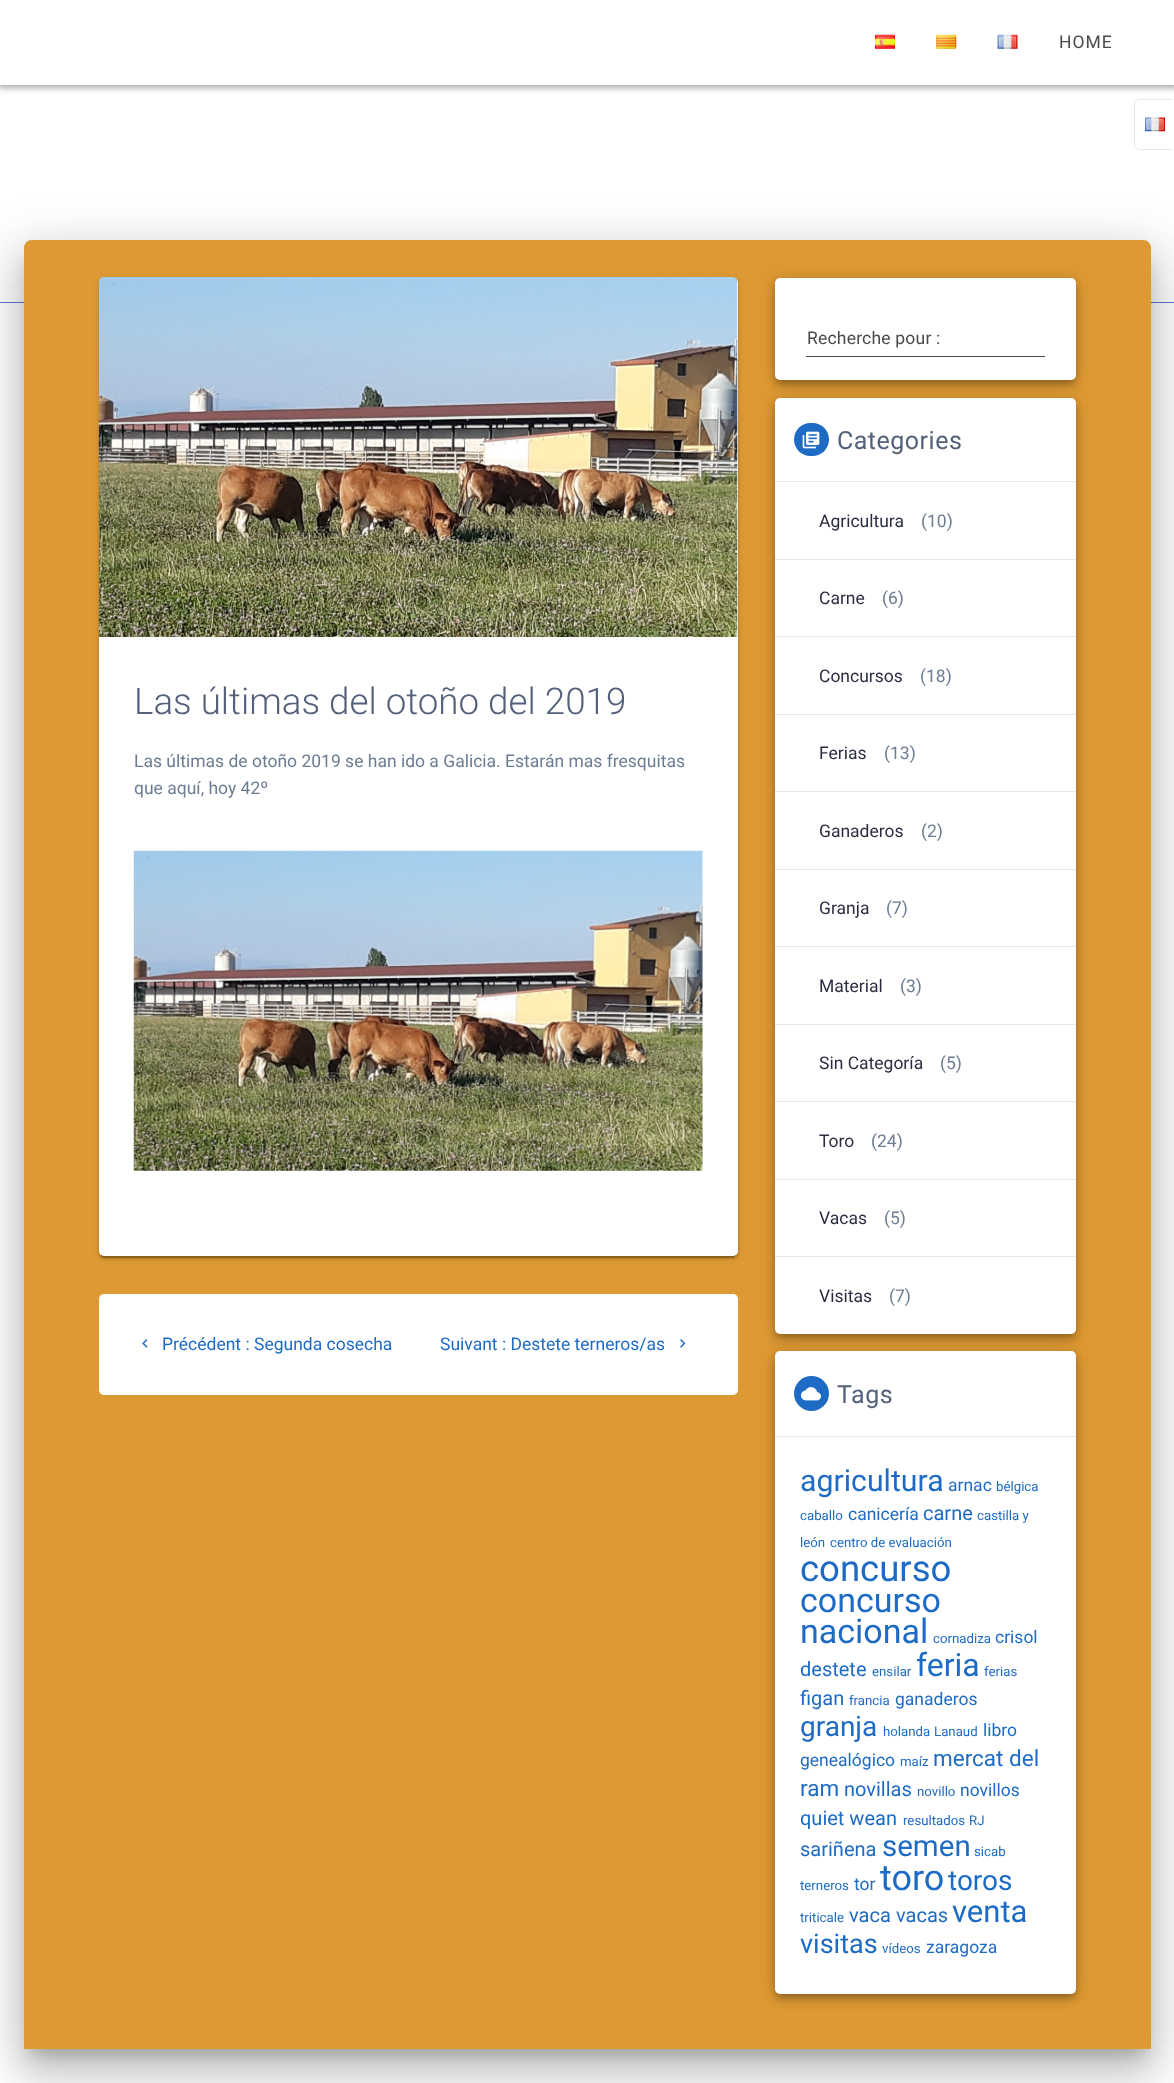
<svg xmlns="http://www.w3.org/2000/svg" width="1174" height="2083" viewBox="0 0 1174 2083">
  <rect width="100%" height="100%" fill="#fff"/>
  <image x="0" y="85" width="1174" height="217" href="img/5.png"/>
  <path d="M-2 -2h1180v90H-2z" fill="#00000054" filter="blur(3px)"/>
  <path d="M0 0h1174v85H0z" fill="#fff"/>
  <image x="875" y="34" width="20" height="15" href="img/1.png"/>
  <image x="936" y="34" width="21" height="15" href="img/2.png"/>
  <image x="997" y="34" width="21" height="15" href="img/3.png"/>
  <rect x="1134" y="99" width="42" height="51" rx="6" fill="#0000001a" filter="blur(0.5px)"/>
  <path d="M1140 100H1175V149H1140C1137 149 1135 147 1135 144V105C1135 102 1137 100 1140 100Z" fill="#fff"/>
  <image x="1145" y="117" width="20" height="15" href="img/4.png"/>
  <path d="M0 302h1174v1H0z" fill="#6a73da"/>
  <rect x="15" y="241" width="1145" height="1827" rx="16" fill="#0000001f" filter="blur(24px)"/>
  <rect x="20" y="261" width="1135" height="1817" rx="11" fill="#00000024" filter="blur(19.5px)"/>
  <path d="M31 260h1113v1794H31z" fill="#00000033" filter="blur(8px)"/>
  <path d="M32 240H1143C1147.5 240 1151 243.5 1151 248V2049H24V248C24 243.5 27.5 240 32 240Z" fill="#d93"/>
  <rect x="99" y="279" width="639" height="979" rx="5" fill="#0000001f" filter="blur(3px)"/>
  <rect x="99" y="280" width="639" height="979" rx="5" fill="#00000024" filter="blur(1px)"/>
  <rect x="101" y="284" width="634" height="974" rx="2.5" fill="#00000033" filter="blur(0.5px)"/>
  <rect x="99" y="278" width="639" height="978" rx="5" fill="#fff"/>
  <image x="98" y="277" width="640" height="360" href="img/6.png"/>
  <image x="133" y="850" width="570" height="321" href="img/7.png"/>
  <rect x="99" y="1294" width="639" height="101" rx="5" fill="#fff"/>
  <image x="142" y="1339" width="6" height="9" href="img/8.png"/>
  <image x="680" y="1339" width="6" height="9" href="img/9.png"/>
  <rect x="775" y="279" width="301" height="102" rx="5" fill="#0000001f" filter="blur(9px)"/>
  <rect x="775" y="284" width="301" height="102" rx="5" fill="#00000024" filter="blur(5px)"/>
  <rect x="776" y="283" width="299" height="100" rx="4" fill="#00000033" filter="blur(3px)"/>
  <rect x="775" y="278" width="301" height="102" rx="5" fill="#fff"/>
  <path d="M806 356h239v1H806z" fill="#4a4a4a"/>
  <rect x="775" y="399" width="301" height="936" rx="5" fill="#0000001f" filter="blur(9px)"/>
  <rect x="775" y="404" width="301" height="936" rx="5" fill="#00000024" filter="blur(5px)"/>
  <rect x="776" y="403" width="299" height="933" rx="4" fill="#00000033" filter="blur(3px)"/>
  <rect x="775" y="398" width="301" height="936" rx="5" fill="#fff"/>
  <path d="M775 481h301v1H775z" fill="#e6e6e6"/>
  <rect x="794" y="423" width="35" height="33" rx="16.5" fill="#1d6bc4"/>
  <image x="802" y="431" width="18" height="18" href="img/10.png"/>
  <path d="M775 559h301v1H775z" fill="#e6e6e6"/>
  <path d="M775 636h301v1H775z" fill="#e6e6e6"/>
  <path d="M775 714h301v1H775z" fill="#e6e6e6"/>
  <path d="M775 791h301v1H775z" fill="#e6e6e6"/>
  <path d="M775 869h301v1H775z" fill="#e6e6e6"/>
  <path d="M775 946h301v1H775z" fill="#e6e6e6"/>
  <path d="M775 1024h301v1H775z" fill="#e6e6e6"/>
  <path d="M775 1101h301v1H775z" fill="#e6e6e6"/>
  <path d="M775 1179h301v1H775z" fill="#e6e6e6"/>
  <path d="M775 1256h301v1H775z" fill="#e6e6e6"/>
  <rect x="775" y="1353" width="301" height="642" rx="5" fill="#0000001f" filter="blur(9px)"/>
  <rect x="775" y="1358" width="301" height="642" rx="5" fill="#00000024" filter="blur(5px)"/>
  <rect x="776" y="1356" width="299" height="640" rx="4" fill="#00000033" filter="blur(3px)"/>
  <rect x="775" y="1351" width="301" height="643" rx="5" fill="#fff"/>
  <path d="M775 1436h301v1H775z" fill="#e6e6e6"/>
  <circle cx="811.5" cy="1393.5" r="17.5" fill="#1d6bc4"/>
  <image x="801" y="1387" width="20" height="14" href="img/11.png"/>
  <text x="1059" y="48" font-family="Roboto" font-size="17.5" letter-spacing="1" fill="#4a4a4a">HOME</text>
  <text x="134" y="714" font-family="Roboto" font-size="36.75" font-weight="300" fill="#54617a">Las últimas del otoño del 2019</text>
  <g font-family="Roboto" font-size="17.5" fill="#6b7c93">
    <text x="134" y="767">Las últimas de otoño 2019 se han ido a Galicia. Estarán mas fresquitas</text>
    <text x="134" y="794">que aquí, hoy 42º</text>
  </g>
  <g font-family="Roboto" font-size="17.5" fill="#1d6bc4">
    <text x="162" y="1350">Précédent : Segunda cosecha</text>
    <text x="440" y="1350">Suivant : Destete terneros/as</text>
  </g>
  <text x="807" y="344" font-family="Roboto" font-size="17.5" letter-spacing="0.2" fill="#4a4a4a">Recherche pour :</text>
  <text x="837" y="449" font-family="Roboto" font-size="25" letter-spacing="0.5" fill="#54617a">Categories</text>
  <text x="819" y="527" font-family="Roboto" font-size="17.5" fill="#2b2d42">Agricultura</text>
  <text x="921" y="527" font-family="Roboto" font-size="17.5" fill="#6b7c93">(10)</text>
  <text x="819" y="604" font-family="Roboto" font-size="17.5" fill="#2b2d42">Carne</text>
  <text x="882" y="604" font-family="Roboto" font-size="17.5" fill="#6b7c93">(6)</text>
  <text x="819" y="682" font-family="Roboto" font-size="17.5" fill="#2b2d42">Concursos</text>
  <text x="920" y="682" font-family="Roboto" font-size="17.5" fill="#6b7c93">(18)</text>
  <text x="819" y="759" font-family="Roboto" font-size="17.5" fill="#2b2d42">Ferias</text>
  <text x="884" y="759" font-family="Roboto" font-size="17.5" fill="#6b7c93">(13)</text>
  <text x="819" y="837" font-family="Roboto" font-size="17.5" fill="#2b2d42">Ganaderos</text>
  <text x="921" y="837" font-family="Roboto" font-size="17.5" fill="#6b7c93">(2)</text>
  <text x="819" y="914" font-family="Roboto" font-size="17.5" fill="#2b2d42">Granja</text>
  <text x="886" y="914" font-family="Roboto" font-size="17.5" fill="#6b7c93">(7)</text>
  <text x="819" y="992" font-family="Roboto" font-size="17.5" fill="#2b2d42">Material</text>
  <text x="900" y="992" font-family="Roboto" font-size="17.5" fill="#6b7c93">(3)</text>
  <text x="819" y="1069" font-family="Roboto" font-size="17.5" fill="#2b2d42">Sin Categoría</text>
  <text x="940" y="1069" font-family="Roboto" font-size="17.5" fill="#6b7c93">(5)</text>
  <text x="819" y="1147" font-family="Roboto" font-size="17.5" fill="#2b2d42">Toro</text>
  <text x="871" y="1147" font-family="Roboto" font-size="17.5" fill="#6b7c93">(24)</text>
  <text x="819" y="1224" font-family="Roboto" font-size="17.5" fill="#2b2d42">Vacas</text>
  <text x="884" y="1224" font-family="Roboto" font-size="17.5" fill="#6b7c93">(5)</text>
  <text x="819" y="1302" font-family="Roboto" font-size="17.5" fill="#2b2d42">Visitas</text>
  <text x="889" y="1302" font-family="Roboto" font-size="17.5" fill="#6b7c93">(7)</text>
  <text x="837" y="1403" font-family="Roboto" font-size="25" letter-spacing="0.5" fill="#54617a">Tags</text>
  <text x="800" y="1491" font-family="Roboto" font-size="30.25" fill="#1d6bc4">agricultura</text>
  <text x="948" y="1491" font-family="Roboto" font-size="17.5" fill="#1d6bc4">arnac</text>
  <g font-family="Roboto" font-size="13.25" fill="#1d6bc4">
    <text x="996" y="1491">bélgica</text>
    <text x="800" y="1520">caballo</text>
  </g>
  <text x="848" y="1520" font-family="Roboto" font-size="17.5" fill="#1d6bc4">canicería</text>
  <text x="923" y="1520" font-family="Roboto" font-size="20" fill="#1d6bc4">carne</text>
  <g font-family="Roboto" font-size="13.25" fill="#1d6bc4">
    <text x="977" y="1520">castilla y</text>
    <text x="800" y="1547">león</text>
    <text x="830" y="1547">centro de evaluación</text>
  </g>
  <text x="800" y="1581" font-family="Roboto" font-size="36.5" fill="#1d6bc4">concurso</text>
  <g font-family="Roboto" font-size="34" fill="#1d6bc4">
    <text x="800" y="1612">concurso</text>
    <text x="800" y="1643">nacional</text>
  </g>
  <text x="933" y="1643" font-family="Roboto" font-size="13.25" fill="#1d6bc4">cornadiza</text>
  <text x="995" y="1643" font-family="Roboto" font-size="17.5" fill="#1d6bc4">crisol</text>
  <text x="800" y="1676" font-family="Roboto" font-size="20" fill="#1d6bc4">destete</text>
  <text x="872" y="1676" font-family="Roboto" font-size="13.25" fill="#1d6bc4">ensilar</text>
  <text x="916" y="1676" font-family="Roboto" font-size="32" fill="#1d6bc4">feria</text>
  <text x="984" y="1676" font-family="Roboto" font-size="13.25" fill="#1d6bc4">ferias</text>
  <text x="800" y="1705" font-family="Roboto" font-size="20" fill="#1d6bc4">figan</text>
  <text x="849" y="1705" font-family="Roboto" font-size="13.25" fill="#1d6bc4">francia</text>
  <text x="895" y="1705" font-family="Roboto" font-size="17.5" fill="#1d6bc4">ganaderos</text>
  <text x="800" y="1736" font-family="Roboto" font-size="28" fill="#1d6bc4">granja</text>
  <g font-family="Roboto" font-size="13.25" fill="#1d6bc4">
    <text x="883" y="1736">holanda</text>
    <text x="934" y="1736">Lanaud</text>
  </g>
  <g font-family="Roboto" font-size="17.5" fill="#1d6bc4">
    <text x="983" y="1736">libro</text>
    <text x="800" y="1766">genealógico</text>
  </g>
  <text x="900" y="1766" font-family="Roboto" font-size="13.25" fill="#1d6bc4">maíz</text>
  <g font-family="Roboto" font-size="22.5" fill="#1d6bc4">
    <text x="933" y="1766">mercat del</text>
    <text x="800" y="1796">ram</text>
  </g>
  <text x="844" y="1796" font-family="Roboto" font-size="20" fill="#1d6bc4">novillas</text>
  <text x="917" y="1796" font-family="Roboto" font-size="13.25" fill="#1d6bc4">novillo</text>
  <text x="960" y="1796" font-family="Roboto" font-size="17.5" fill="#1d6bc4">novillos</text>
  <text x="800" y="1825" font-family="Roboto" font-size="20" fill="#1d6bc4">quiet wean</text>
  <g font-family="Roboto" font-size="13.25" fill="#1d6bc4">
    <text x="903" y="1825">resultados</text>
    <text x="969" y="1825">RJ</text>
  </g>
  <text x="800" y="1856" font-family="Roboto" font-size="20" fill="#1d6bc4">sariñena</text>
  <text x="882" y="1856" font-family="Roboto" font-size="29.5" fill="#1d6bc4">semen</text>
  <g font-family="Roboto" font-size="13.25" fill="#1d6bc4">
    <text x="974" y="1856">sicab</text>
    <text x="800" y="1890">terneros</text>
  </g>
  <text x="854" y="1890" font-family="Roboto" font-size="17.5" fill="#1d6bc4">tor</text>
  <text x="880" y="1890" font-family="Roboto" font-size="36" fill="#1d6bc4">toro</text>
  <text x="948" y="1890" font-family="Roboto" font-size="28" fill="#1d6bc4">toros</text>
  <text x="800" y="1922" font-family="Roboto" font-size="13.25" fill="#1d6bc4">triticale</text>
  <g font-family="Roboto" font-size="20" fill="#1d6bc4">
    <text x="849" y="1922">vaca</text>
    <text x="896" y="1922">vacas</text>
  </g>
  <text x="952" y="1922" font-family="Roboto" font-size="31" fill="#1d6bc4">venta</text>
  <text x="800" y="1953" font-family="Roboto" font-size="27" fill="#1d6bc4">visitas</text>
  <text x="882" y="1953" font-family="Roboto" font-size="13.25" fill="#1d6bc4">vídeos</text>
  <text x="926" y="1953" font-family="Roboto" font-size="17.5" fill="#1d6bc4">zaragoza</text>
</svg>
